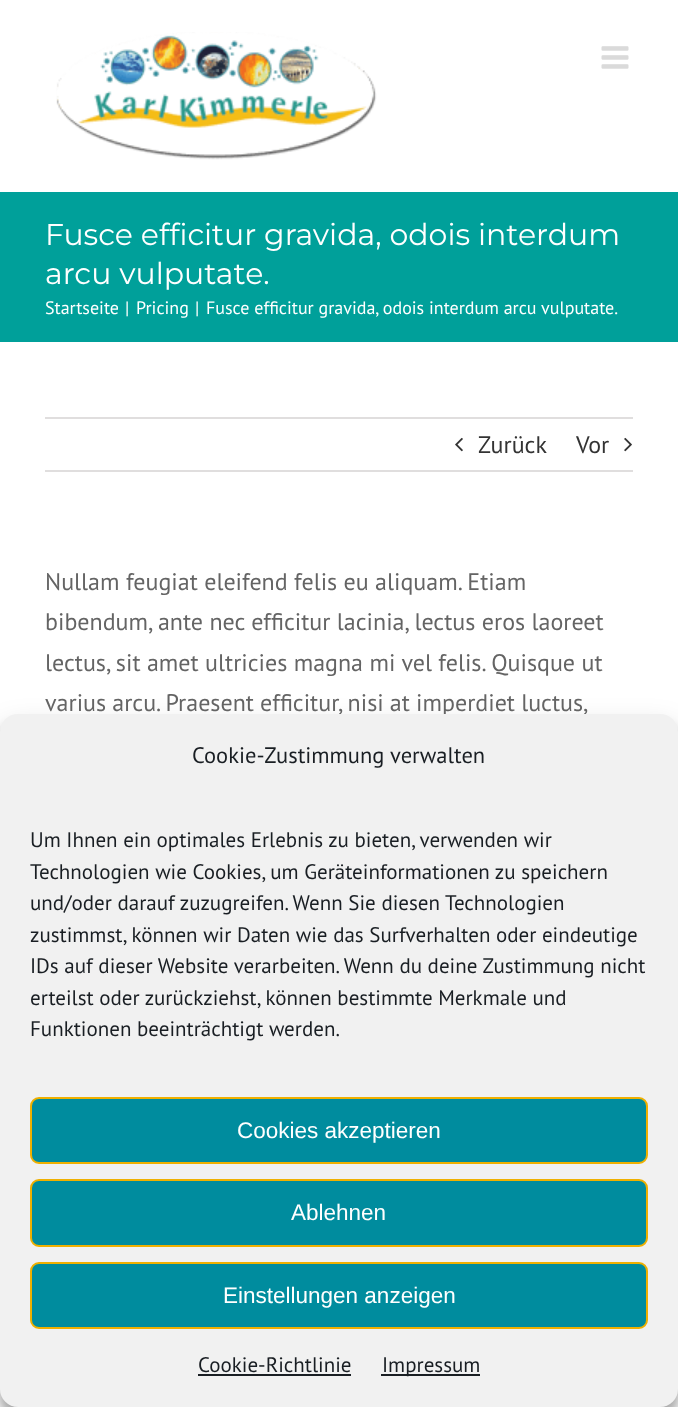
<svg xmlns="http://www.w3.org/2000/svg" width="678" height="1407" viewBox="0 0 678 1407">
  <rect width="100%" height="100%" fill="#fff"/>
  <image x="56" y="32" width="321" height="128" href="img/1.png"/>
  <image x="601" y="46" width="28" height="23" href="img/2.png"/>
  <path d="M0 192h678v150H0z" fill="#00a09a"/>
  <path d="M45 417h588v2H45z" fill="#e0dede"/>
  <path d="M45 470h588v2H45z" fill="#e0dede"/>
  <image x="455" y="437" width="8" height="15" href="img/3.png"/>
  <image x="624" y="437" width="8" height="15" href="img/4.png"/>
  <rect y="723" width="678" height="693" rx="18" fill="#0000003b" filter="blur(4.5px)"/>
  <rect y="729" width="678" height="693" rx="18" fill="#00000030" filter="blur(15px)"/>
  <g font-family="Montserrat" font-size="30" fill="#fff">
    <text x="45" y="245">Fusce efficitur gravida, odois interdum</text>
    <text x="45" y="284">arcu vulputate.</text>
  </g>
  <g font-family="PT Sans" font-size="18" fill="#fff">
    <text x="45" y="314">Startseite</text>
    <text x="125" y="314">|</text>
    <text x="136" y="314">Pricing</text>
    <text x="195" y="314">|</text>
    <text x="206" y="314">Fusce efficitur gravida, odois interdum arcu vulputate.</text>
  </g>
  <g font-family="PT Sans" font-size="24" fill="#333">
    <text x="478" y="453">Zurück</text>
    <text x="576" y="453">Vor</text>
  </g>
  <g font-family="PT Sans" font-size="24" fill="#646464">
    <text x="45" y="590">Nullam feugiat eleifend felis eu aliquam. Etiam</text>
    <text x="45" y="630">bibendum, ante nec efficitur lacinia, lectus eros laoreet</text>
    <text x="45" y="671">lectus, sit amet ultricies magna mi vel felis. Quisque ut</text>
    <text x="45" y="711" word-spacing="-0.25">varius arcu. Praesent efficitur, nisi at imperdiet luctus,</text>
  </g>
  <rect y="714" width="678" height="693" rx="18" fill="#f1f1f1"/>
  <text x="192" y="763" font-family="PT Sans" font-size="22.5" fill="#191e23">Cookie-Zustimmung verwalten</text>
  <g font-family="PT Sans" font-size="21" fill="#191e23">
    <text x="30" y="847">Um Ihnen ein optimales Erlebnis zu bieten, verwenden wir</text>
    <text x="30" y="879">Technologien wie Cookies, um Geräteinformationen zu speichern</text>
    <text x="30" y="910">und/oder darauf zuzugreifen. Wenn Sie diesen Technologien</text>
    <text x="30" y="942">zustimmst, können wir Daten wie das Surfverhalten oder eindeutige</text>
    <text x="30" y="973">IDs auf dieser Website verarbeiten. Wenn du deine Zustimmung nicht</text>
    <text x="30" y="1005">erteilst oder zurückziehst, können bestimmte Merkmale und</text>
    <text x="30" y="1036">Funktionen beeinträchtigt werden.</text>
  </g>
  <rect x="31" y="1098" width="616" height="65" rx="8" fill="#008c9e" stroke="#efb000" stroke-width="2"/>
  <text x="237" y="1138" font-family="Liberation Sans" font-size="22.5" fill="#fff">Cookies akzeptieren</text>
  <rect x="31" y="1180" width="616" height="66" rx="8" fill="#008c9e" stroke="#efb000" stroke-width="2"/>
  <text x="291" y="1220" font-family="Liberation Sans" font-size="22.5" fill="#fff">Ablehnen</text>
  <rect x="31" y="1263" width="616" height="65" rx="8" fill="#008c9e" stroke="#efb000" stroke-width="2"/>
  <text x="223" y="1303" font-family="Liberation Sans" font-size="22.5" fill="#fff">Einstellungen anzeigen</text>
  <text x="198" y="1372" font-family="PT Sans" font-size="21" fill="#191e23">Cookie-Richtlinie</text>
  <path d="M198 1374h153v2H198z" fill="#191e23"/>
  <path d="M381 1374h99v2H381z" fill="#191e23"/>
  <text x="382" y="1372" font-family="PT Sans" font-size="21" fill="#191e23">Impressum</text>
</svg>
